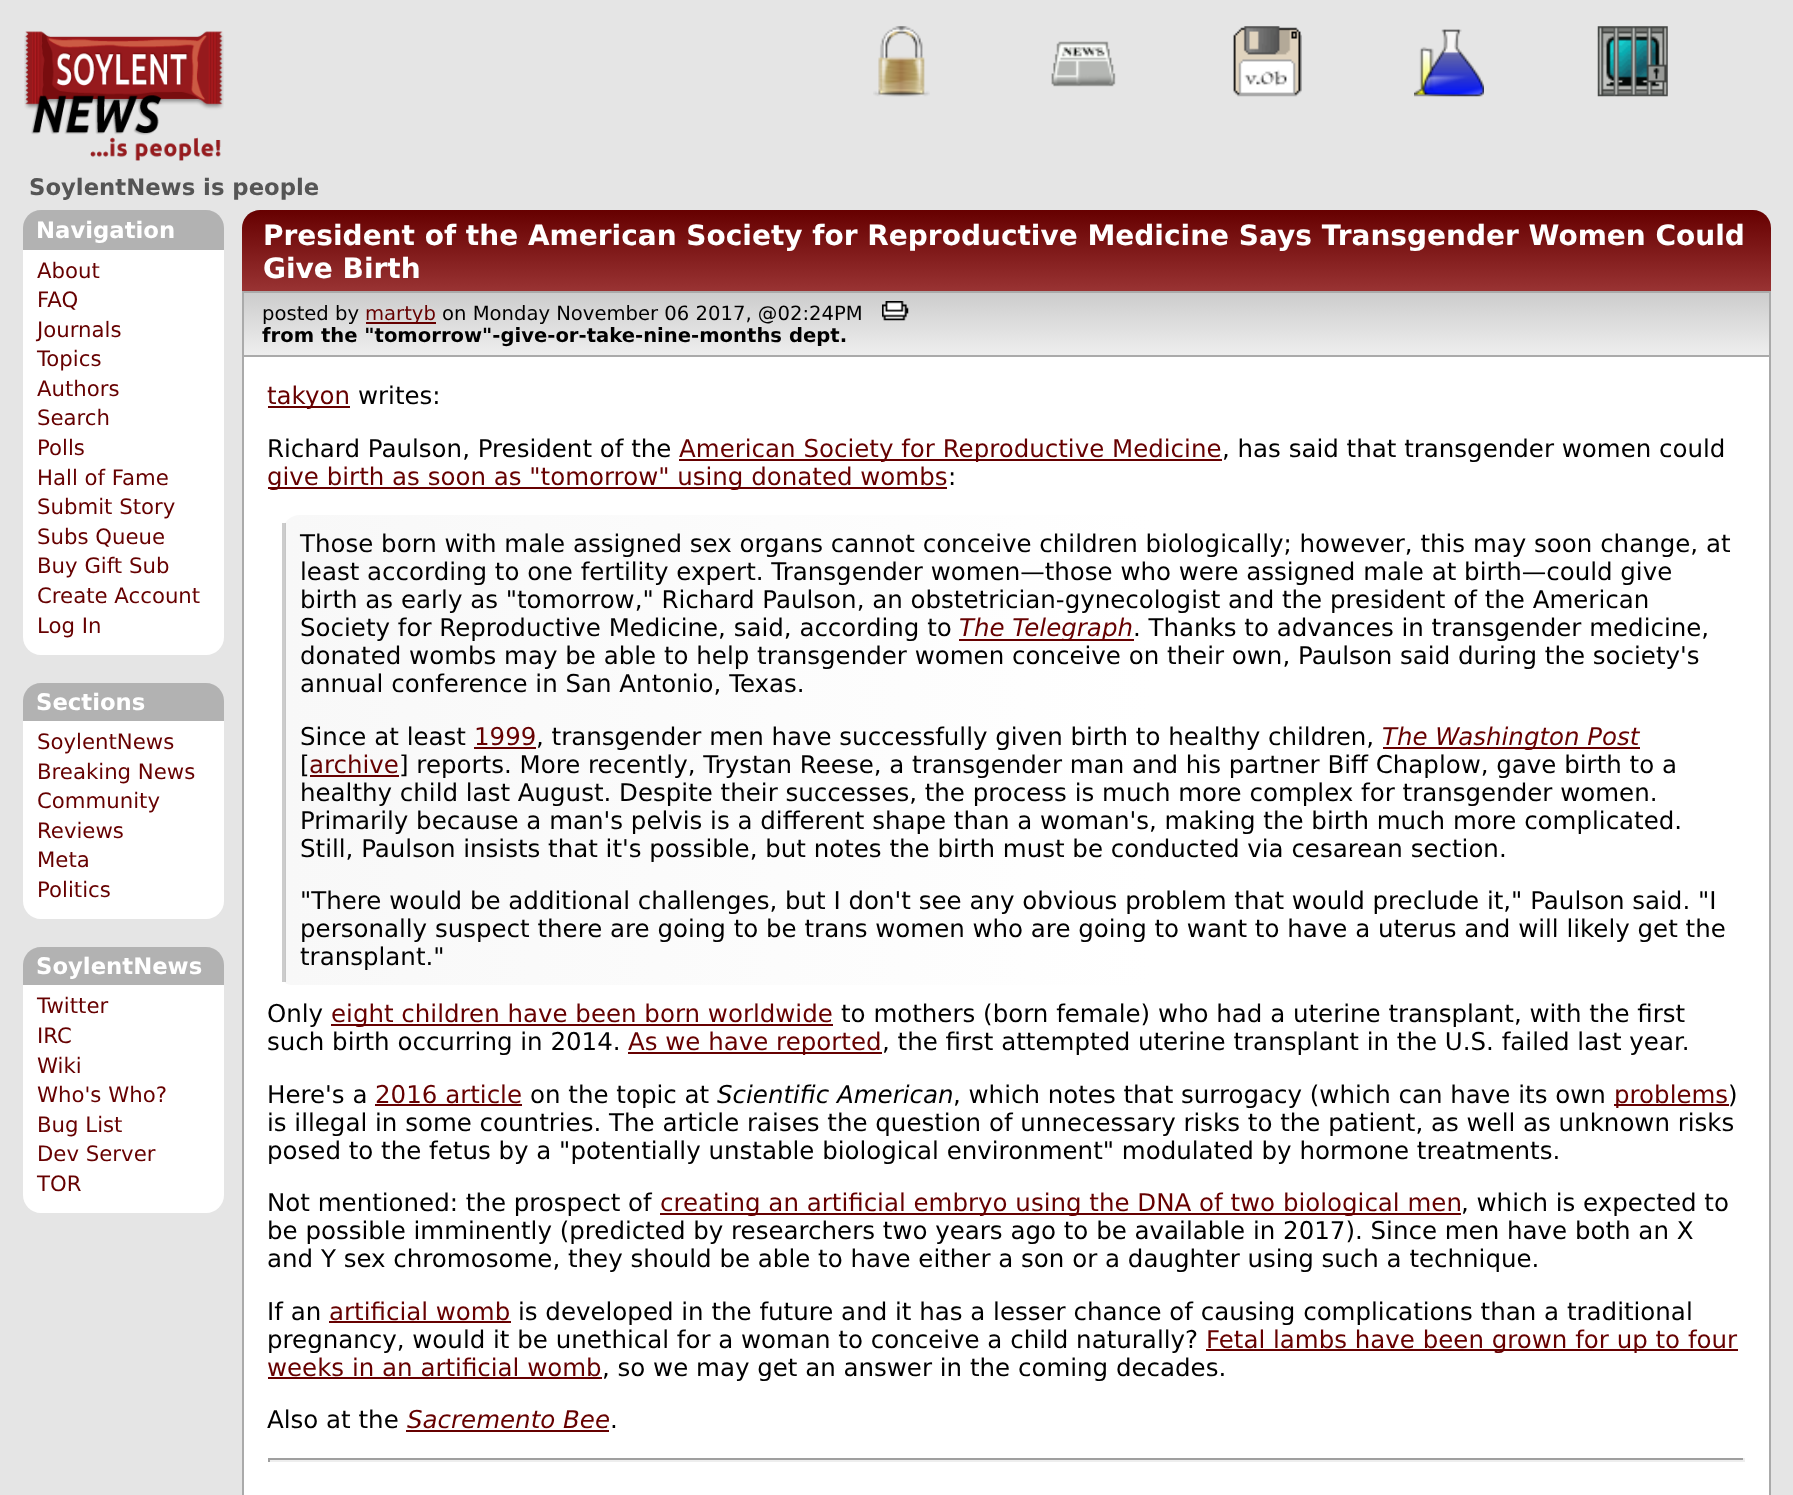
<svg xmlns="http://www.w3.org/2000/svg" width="1793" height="1495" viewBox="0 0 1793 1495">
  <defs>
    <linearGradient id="g1" gradientUnits="userSpaceOnUse" x1="1006" y1="210" x2="1006" y2="291"><stop offset="0" stop-color="#600"/><stop offset="1" stop-color="#933"/></linearGradient>
    <linearGradient id="g2" gradientUnits="userSpaceOnUse" x1="1006" y1="292" x2="1006" y2="355"><stop offset="0" stop-color="#ccc"/><stop offset="1" stop-color="#eee"/></linearGradient>
    <clipPath id="clip1"><path d="M300 515H1731V985H291C286 985 282 981 282 976V533C282 523 290 515 300 515Z"/></clipPath>
    <linearGradient id="g3" gradientUnits="userSpaceOnUse" x1="285" y1="750" x2="1731" y2="750"><stop offset="0" stop-color="#f8f8f8"/><stop offset="0.6" stop-color="#fff"/></linearGradient>
    <linearGradient id="g4" gradientUnits="userSpaceOnUse" x1="285" y1="750" x2="1731" y2="750"><stop offset="0" stop-color="#c6c6c6"/><stop offset="0.6" stop-color="#ccc"/></linearGradient>
  </defs>
  <rect width="100%" height="100%" fill="#e5e5e5"/>
  <image x="24" y="31" width="200" height="130" href="img/1.png"/>
  <image x="873" y="26" width="57" height="71" href="img/2.png"/>
  <image x="1051" y="41" width="65" height="46" href="img/3.png"/>
  <image x="1233" y="26" width="69" height="71" href="img/4.png"/>
  <image x="1414" y="29" width="70" height="68" href="img/5.png"/>
  <image x="1597" y="26" width="71" height="71" href="img/6.png"/>
  <path d="M41 210H206C216 210 224 218 224 228V250H23V228C23 218 31 210 41 210Z" fill="#b2b2b2"/>
  <path d="M23 250H224V637C224 647 216 655 206 655H41C31 655 23 647 23 637Z" fill="#fff"/>
  <path d="M41 683H206C216 683 224 691 224 701V721H23V701C23 691 31 683 41 683Z" fill="#b2b2b2"/>
  <path d="M23 721H224V901C224 911 216 919 206 919H41C31 919 23 911 23 901Z" fill="#fff"/>
  <path d="M41 947H206C216 947 224 955 224 965V985H23V965C23 955 31 947 41 947Z" fill="#b2b2b2"/>
  <path d="M23 985H224V1195C224 1205 216 1213 206 1213H41C31 1213 23 1205 23 1195Z" fill="#fff"/>
  <path d="M260 210H1753C1763 210 1771 218 1771 228V291H242V228C242 218 250 210 260 210Z" fill="url(#g1)"/>
  <path d="M244 293h1525v62H244z" fill="url(#g2)"/>
  <path d="M243 292h1527v64H243z" fill="none" stroke="#aaa" stroke-width="2"/>
  <path d="M366 322h70v2H366z" fill="#600"/>
  <image x="882" y="301" width="27" height="20" href="img/7.png"/>
  <path d="M244 357h1525v1138H244z" fill="#fff"/>
  <path d="M282 523h3v459H282z" fill="#ccc"/>
  <path d="M1769 357h2v1138H1769z" fill="#aaa"/>
  <path d="M242 357h2v1138H242z" fill="#aaa"/>
  <path d="M268 406h82v2H268z" fill="#600"/>
  <path d="M679 459h543v2H679z" fill="#600"/>
  <path d="M268 487h679v2H268z" fill="#600"/>
  <g clip-path="url(#clip1)">
    <path d="M285 515h1446v470H285z" fill="url(#g3)"/>
  </g>
  <path d="M285 523h1v459H285z" fill="url(#g4)"/>
  <path d="M959 639h175v2H959z" fill="#600"/>
  <path d="M474 747h62v2H474z" fill="#600"/>
  <path d="M1383 747h257v2H1383z" fill="#600"/>
  <path d="M310 775h89v2H310z" fill="#600"/>
  <path d="M331 1024h502v2H331z" fill="#600"/>
  <path d="M628 1052h254v2H628z" fill="#600"/>
  <path d="M375 1104h147v2H375z" fill="#600"/>
  <path d="M1614 1104h115v2H1614z" fill="#600"/>
  <path d="M660 1213h801v2H660z" fill="#600"/>
  <path d="M329 1321h182v2H329z" fill="#600"/>
  <path d="M1206 1349h532v2H1206z" fill="#600"/>
  <path d="M268 1377h334v2H268z" fill="#600"/>
  <path d="M406 1430h203v2H406z" fill="#600"/>
  <path d="M268 1458h1477v2H268z" fill="#9f9f9f"/>
  <path d="M1743 1458h2v4H1743z" fill="#eee"/>
  <path d="M268 1460h1477v2H268z" fill="#eee"/>
  <path d="M268 1458h2v4H268z" fill="#9f9f9f"/>
  <text x="29" y="195" font-family="DejaVu Sans" font-size="22.75" font-weight="bold" fill="#555">SoylentNews is people</text>
  <text x="36" y="238" font-family="DejaVu Sans" font-size="22.75" font-weight="bold" fill="#fff">Navigation</text>
  <g font-family="DejaVu Sans" font-size="21.25" fill="#600">
    <text x="37" y="278">About</text>
    <text x="37" y="307">FAQ</text>
    <text x="37" y="337">Journals</text>
    <text x="37" y="366">Topics</text>
    <text x="37" y="396">Authors</text>
    <text x="37" y="425">Search</text>
    <text x="37" y="455">Polls</text>
    <text x="37" y="485">Hall of Fame</text>
    <text x="37" y="514">Submit Story</text>
    <text x="37" y="544">Subs Queue</text>
    <text x="37" y="573">Buy Gift Sub</text>
    <text x="37" y="603">Create Account</text>
    <text x="37" y="633">Log In</text>
  </g>
  <text x="36" y="710" font-family="DejaVu Sans" font-size="22.75" font-weight="bold" fill="#fff">Sections</text>
  <g font-family="DejaVu Sans" font-size="21.25" fill="#600">
    <text x="37" y="749">SoylentNews</text>
    <text x="37" y="779">Breaking News</text>
    <text x="37" y="808">Community</text>
    <text x="37" y="838">Reviews</text>
    <text x="37" y="867">Meta</text>
    <text x="37" y="897">Politics</text>
  </g>
  <text x="36" y="974" font-family="DejaVu Sans" font-size="22.75" font-weight="bold" fill="#fff">SoylentNews</text>
  <g font-family="DejaVu Sans" font-size="21.25" fill="#600">
    <text x="37" y="1013">Twitter</text>
    <text x="37" y="1043">IRC</text>
    <text x="37" y="1073">Wiki</text>
    <text x="37" y="1102">Who's Who?</text>
    <text x="37" y="1132">Bug List</text>
    <text x="37" y="1161">Dev Server</text>
    <text x="37" y="1191">TOR</text>
  </g>
  <g font-family="DejaVu Sans" font-size="28" font-weight="bold" fill="#fff">
    <text x="263" y="245">President of the American Society for Reproductive Medicine Says Transgender Women Could</text>
    <text x="263" y="278">Give Birth</text>
  </g>
  <text x="262" y="320" font-family="DejaVu Sans" font-size="19.6" fill="#000">posted by</text>
  <text x="365" y="320" font-family="DejaVu Sans" font-size="19.6" fill="#600">martyb</text>
  <text x="442" y="320" font-family="DejaVu Sans" font-size="19.6" fill="#000">on Monday November 06 2017, @02:24PM</text>
  <g font-family="DejaVu Sans" font-size="19.6" font-weight="bold" fill="#000">
    <text x="262" y="342">from the "tomorrow"-give-or-take-nine-months</text>
    <text x="789" y="342">dept.</text>
  </g>
  <text x="267" y="404" font-family="DejaVu Sans" font-size="24.5" fill="#600">takyon</text>
  <g font-family="DejaVu Sans" font-size="24.5" fill="#000">
    <text x="358" y="404">writes:</text>
    <text x="267" y="457">Richard Paulson, President of the</text>
  </g>
  <text x="679" y="457" font-family="DejaVu Sans" font-size="24.5" fill="#600">American Society for Reproductive Medicine</text>
  <text x="1222" y="457" font-family="DejaVu Sans" font-size="24.5" fill="#000">, has said that transgender women could</text>
  <text x="267" y="485" font-family="DejaVu Sans" font-size="24.5" fill="#600">give birth as soon as "tomorrow" using donated wombs</text>
  <g font-family="DejaVu Sans" font-size="24.5" fill="#000">
    <text x="948" y="485">:</text>
    <text x="300" y="552">Those born with male assigned sex organs cannot conceive children biologically; however, this may soon change, at</text>
    <text x="300" y="580">least according to one fertility expert. Transgender women—those who were assigned male at birth—could give</text>
    <text x="300" y="608">birth as early as "tomorrow," Richard Paulson, an obstetrician-gynecologist and the president of the American</text>
    <text x="300" y="636">Society for Reproductive Medicine, said, according to</text>
  </g>
  <text x="959" y="636" font-family="DejaVu Sans" font-size="24.5" font-style="italic" fill="#600">The Telegraph</text>
  <g font-family="DejaVu Sans" font-size="24.5" fill="#000">
    <text x="1133" y="636">. Thanks to advances in transgender medicine,</text>
    <text x="300" y="664">donated wombs may be able to help transgender women conceive on their own, Paulson said during the society's</text>
    <text x="300" y="692">annual conference in San Antonio, Texas.</text>
    <text x="300" y="745">Since at least</text>
  </g>
  <text x="474" y="745" font-family="DejaVu Sans" font-size="24.5" fill="#600">1999</text>
  <text x="536" y="745" font-family="DejaVu Sans" font-size="24.5" fill="#000">, transgender men have successfully given birth to healthy children,</text>
  <text x="1382" y="745" font-family="DejaVu Sans" font-size="24.5" font-style="italic" fill="#600">The Washington Post</text>
  <text x="300" y="773" font-family="DejaVu Sans" font-size="24.5" fill="#000">[</text>
  <text x="309" y="773" font-family="DejaVu Sans" font-size="24.5" fill="#600">archive</text>
  <g font-family="DejaVu Sans" font-size="24.5" fill="#000">
    <text x="399" y="773">] reports. More recently, Trystan Reese, a transgender man and his partner Biff Chaplow, gave birth to a</text>
    <text x="300" y="801">healthy child last August. Despite their successes, the process is much more complex for transgender women.</text>
    <text x="300" y="829">Primarily because a man's pelvis is a different shape than a woman's, making the birth much more complicated.</text>
    <text x="300" y="857">Still, Paulson insists that it's possible, but notes the birth must be conducted via cesarean section.</text>
    <text x="300" y="909">"There would be additional challenges, but I don't see any obvious problem that would preclude it," Paulson said. "I</text>
    <text x="300" y="937">personally suspect there are going to be trans women who are going to want to have a uterus and will likely get the</text>
    <text x="300" y="965">transplant."</text>
    <text x="267" y="1022">Only</text>
  </g>
  <text x="331" y="1022" font-family="DejaVu Sans" font-size="24.5" fill="#600">eight children have been born worldwide</text>
  <g font-family="DejaVu Sans" font-size="24.5" fill="#000">
    <text x="841" y="1022">to mothers (born female) who had a uterine transplant, with the first</text>
    <text x="267" y="1050">such birth occurring in 2014.</text>
  </g>
  <text x="628" y="1050" font-family="DejaVu Sans" font-size="24.5" fill="#600">As we have reported</text>
  <g font-family="DejaVu Sans" font-size="24.5" fill="#000">
    <text x="882" y="1050">, the first attempted uterine transplant in the U.S. failed last year.</text>
    <text x="267" y="1103">Here's a</text>
  </g>
  <text x="375" y="1103" font-family="DejaVu Sans" font-size="24.5" fill="#600">2016 article</text>
  <text x="530" y="1103" font-family="DejaVu Sans" font-size="24.5" fill="#000">on the topic at</text>
  <text x="717" y="1103" font-family="DejaVu Sans" font-size="24.5" font-style="italic" fill="#000">Scientific American</text>
  <text x="953" y="1103" font-family="DejaVu Sans" font-size="24.5" fill="#000">, which notes that surrogacy (which can have its own</text>
  <text x="1614" y="1103" font-family="DejaVu Sans" font-size="24.5" fill="#600">problems</text>
  <g font-family="DejaVu Sans" font-size="24.5" fill="#000">
    <text x="1728" y="1103">)</text>
    <text x="267" y="1131">is illegal in some countries. The article raises the question of unnecessary risks to the patient, as well as unknown risks</text>
    <text x="267" y="1159">posed to the fetus by a "potentially unstable biological environment" modulated by hormone treatments.</text>
    <text x="267" y="1211">Not mentioned: the prospect of</text>
  </g>
  <text x="660" y="1211" font-family="DejaVu Sans" font-size="24.5" fill="#600">creating an artificial embryo using the DNA of two biological men</text>
  <g font-family="DejaVu Sans" font-size="24.5" fill="#000">
    <text x="1461" y="1211">, which is expected to</text>
    <text x="267" y="1239">be possible imminently (predicted by researchers two years ago to be available in 2017). Since men have both an X</text>
    <text x="267" y="1267">and Y sex chromosome, they should be able to have either a son or a daughter using such a technique.</text>
    <text x="267" y="1320">If an</text>
  </g>
  <text x="329" y="1320" font-family="DejaVu Sans" font-size="24.5" fill="#600">artificial womb</text>
  <g font-family="DejaVu Sans" font-size="24.5" fill="#000">
    <text x="518" y="1320">is developed in the future and it has a lesser chance of causing complications than a traditional</text>
    <text x="267" y="1348">pregnancy, would it be unethical for a woman to conceive a child naturally?</text>
  </g>
  <g font-family="DejaVu Sans" font-size="24.5" fill="#600">
    <text x="1206" y="1348">Fetal lambs have been grown for up to four</text>
    <text x="267" y="1376">weeks in an artificial womb</text>
  </g>
  <g font-family="DejaVu Sans" font-size="24.5" fill="#000">
    <text x="602" y="1376">, so we may get an answer in the coming decades.</text>
    <text x="267" y="1428">Also at the</text>
  </g>
  <text x="407" y="1428" font-family="DejaVu Sans" font-size="24.5" font-style="italic" fill="#600">Sacremento Bee</text>
  <text x="610" y="1428" font-family="DejaVu Sans" font-size="24.5" fill="#000">.</text>
</svg>
